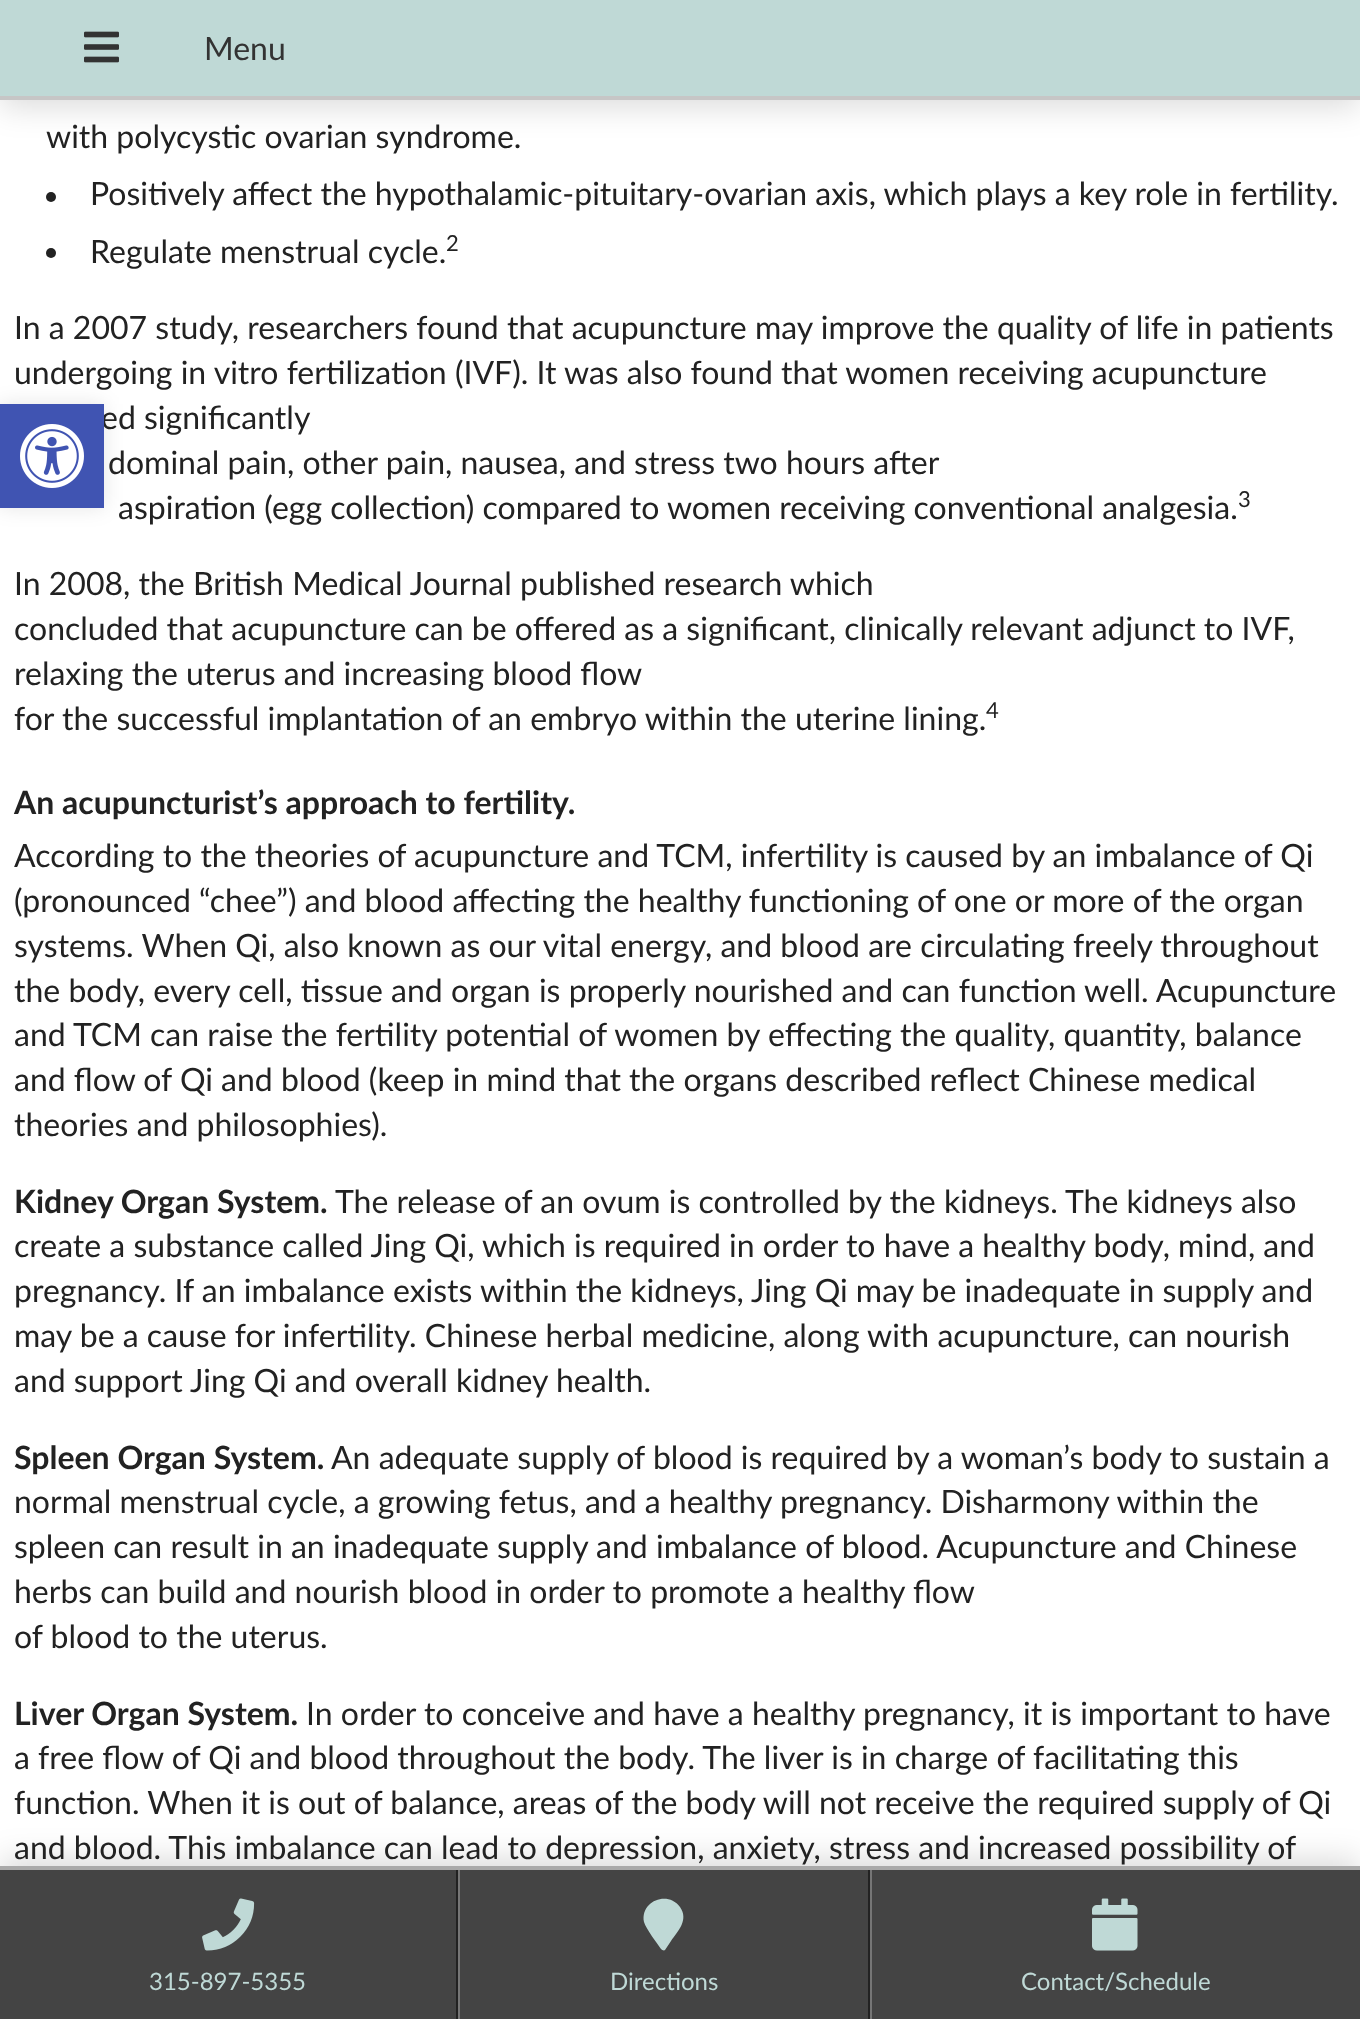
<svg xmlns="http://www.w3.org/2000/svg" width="1360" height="2019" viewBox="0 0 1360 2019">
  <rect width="100%" height="100%" fill="#fff"/>
  <path d="M0 6h1360v100H0z" fill="#00000026" filter="blur(16px)"/>
  <path d="M0 0h1360v96H0z" fill="#bfd9d6"/>
  <path d="M0 96h1360v4H0z" fill="#c6c6c6"/>
  <image x="84" y="31" width="35" height="32" href="img/1.png"/>
  <circle cx="51" cy="197" r="5" fill="#222"/>
  <circle cx="51" cy="253" r="5" fill="#222"/>
  <path d="M0 404h104v104H0z" fill="#0000001a" filter="blur(10px)"/>
  <path d="M0 1860h1360v154H0z" fill="#00000026" filter="blur(16px)"/>
  <path d="M0 1870h1360v149H0z" fill="#444"/>
  <path d="M0 1866h1360v4H0z" fill="#aaa"/>
  <path d="M456 1870h2v149H456z" fill="#222"/>
  <image x="202" y="1898" width="53" height="53" href="img/3.png"/>
  <path d="M868 1870h2v149H868z" fill="#222"/>
  <path d="M458 1870h2v149H458z" fill="#767676"/>
  <path d="M661 1949C657 1943 646 1929 644 1922C640 1901 668 1890 680 1907C689 1920 678 1931 671 1941L665 1950C664 1951 662 1950 661 1949Z" fill="#bfd9d6"/>
  <path d="M870 1870h2v149H870z" fill="#767676"/>
  <image x="1092" y="1898" width="46" height="53" href="img/4.png"/>
  <text x="204" y="60" font-family="Lato" font-size="32" fill="#333">Menu</text>
  <g font-family="Lato" font-size="32" fill="#222">
    <text x="46" y="148">with polycystic ovarian syndrome.</text>
    <text x="90" y="205">Positively affect the hypothalamic-pituitary-ovarian axis, which plays a key role in fertility.</text>
    <text x="90" y="263">Regulate menstrual cycle.</text>
  </g>
  <text x="446" y="251" font-family="Lato" font-size="22" fill="#222">2</text>
  <g font-family="Lato" font-size="32" fill="#222">
    <text x="14" y="339">In a 2007 study, researchers found that acupuncture may improve the quality of life in patients</text>
    <text x="14" y="384">undergoing in vitro fertilization (IVF). It was also found that women receiving acupuncture</text>
    <text x="101" y="429">ed significantly</text>
    <text x="108" y="474">dominal pain, other pain, nausea, and stress two hours after</text>
    <text x="118" y="519">aspiration (egg collection) compared to women receiving conventional analgesia.</text>
  </g>
  <text x="1238" y="507" font-family="Lato" font-size="22" fill="#222">3</text>
  <g font-family="Lato" font-size="32" fill="#222">
    <text x="14" y="595">In 2008, the British Medical Journal published research which</text>
    <text x="14" y="640">concluded that acupuncture can be offered as a significant, clinically relevant adjunct to IVF,</text>
    <text x="14" y="685">relaxing the uterus and increasing blood flow</text>
    <text x="14" y="730">for the successful implantation of an embryo within the uterine lining.</text>
  </g>
  <text x="986" y="718" font-family="Lato" font-size="22" fill="#222">4</text>
  <text x="14" y="814" font-family="Lato" font-size="32" font-weight="bold" fill="#222">An acupuncturist’s approach to fertility.</text>
  <g font-family="Lato" font-size="32" fill="#222">
    <text x="14" y="867">According to the theories of acupuncture and TCM, infertility is caused by an imbalance of Qi</text>
    <text x="14" y="912">(pronounced “chee”) and blood affecting the healthy functioning of one or more of the organ</text>
    <text x="14" y="957">systems. When Qi, also known as our vital energy, and blood are circulating freely throughout</text>
    <text x="14" y="1002">the body, every cell, tissue and organ is properly nourished and can function well. Acupuncture</text>
    <text x="14" y="1046">and TCM can raise the fertility potential of women by effecting the quality, quantity, balance</text>
    <text x="14" y="1091">and flow of Qi and blood (keep in mind that the organs described reflect Chinese medical</text>
    <text x="14" y="1136">theories and philosophies).</text>
  </g>
  <text x="14" y="1213" font-family="Lato" font-size="32" font-weight="bold" fill="#222">Kidney Organ System.</text>
  <g font-family="Lato" font-size="32" fill="#222">
    <text x="335" y="1213">The release of an ovum is controlled by the kidneys. The kidneys also</text>
    <text x="14" y="1257">create a substance called Jing Qi, which is required in order to have a healthy body, mind, and</text>
    <text x="14" y="1302">pregnancy. If an imbalance exists within the kidneys, Jing Qi may be inadequate in supply and</text>
    <text x="14" y="1347">may be a cause for infertility. Chinese herbal medicine, along with acupuncture, can nourish</text>
    <text x="14" y="1392">and support Jing Qi and overall kidney health.</text>
  </g>
  <text x="14" y="1469" font-family="Lato" font-size="32" font-weight="bold" fill="#222">Spleen Organ System.</text>
  <g font-family="Lato" font-size="32" fill="#222">
    <text x="331" y="1469">An adequate supply of blood is required by a woman’s body to sustain a</text>
    <text x="14" y="1513">normal menstrual cycle, a growing fetus, and a healthy pregnancy. Disharmony within the</text>
    <text x="14" y="1558">spleen can result in an inadequate supply and imbalance of blood. Acupuncture and Chinese</text>
    <text x="14" y="1603">herbs can build and nourish blood in order to promote a healthy flow</text>
    <text x="14" y="1648">of blood to the uterus.</text>
  </g>
  <text x="14" y="1725" font-family="Lato" font-size="32" font-weight="bold" fill="#222">Liver Organ System.</text>
  <g font-family="Lato" font-size="32" fill="#222">
    <text x="306" y="1725">In order to conceive and have a healthy pregnancy, it is important to have</text>
    <text x="14" y="1769">a free flow of Qi and blood throughout the body. The liver is in charge of facilitating this</text>
    <text x="14" y="1814">function. When it is out of balance, areas of the body will not receive the required supply of Qi</text>
    <text x="14" y="1859">and blood. This imbalance can lead to depression, anxiety, stress and increased possibility of</text>
  </g>
  <path d="M0 404h104v104H0z" fill="#4054b2"/>
  <image x="20" y="424" width="64" height="64" href="img/2.png"/>
  <g font-family="Lato" font-size="24" fill="#bfd9d6">
    <text x="149" y="1990">315-897-5355</text>
    <text x="610" y="1990">Directions</text>
    <text x="1021" y="1990">Contact/Schedule</text>
  </g>
</svg>
